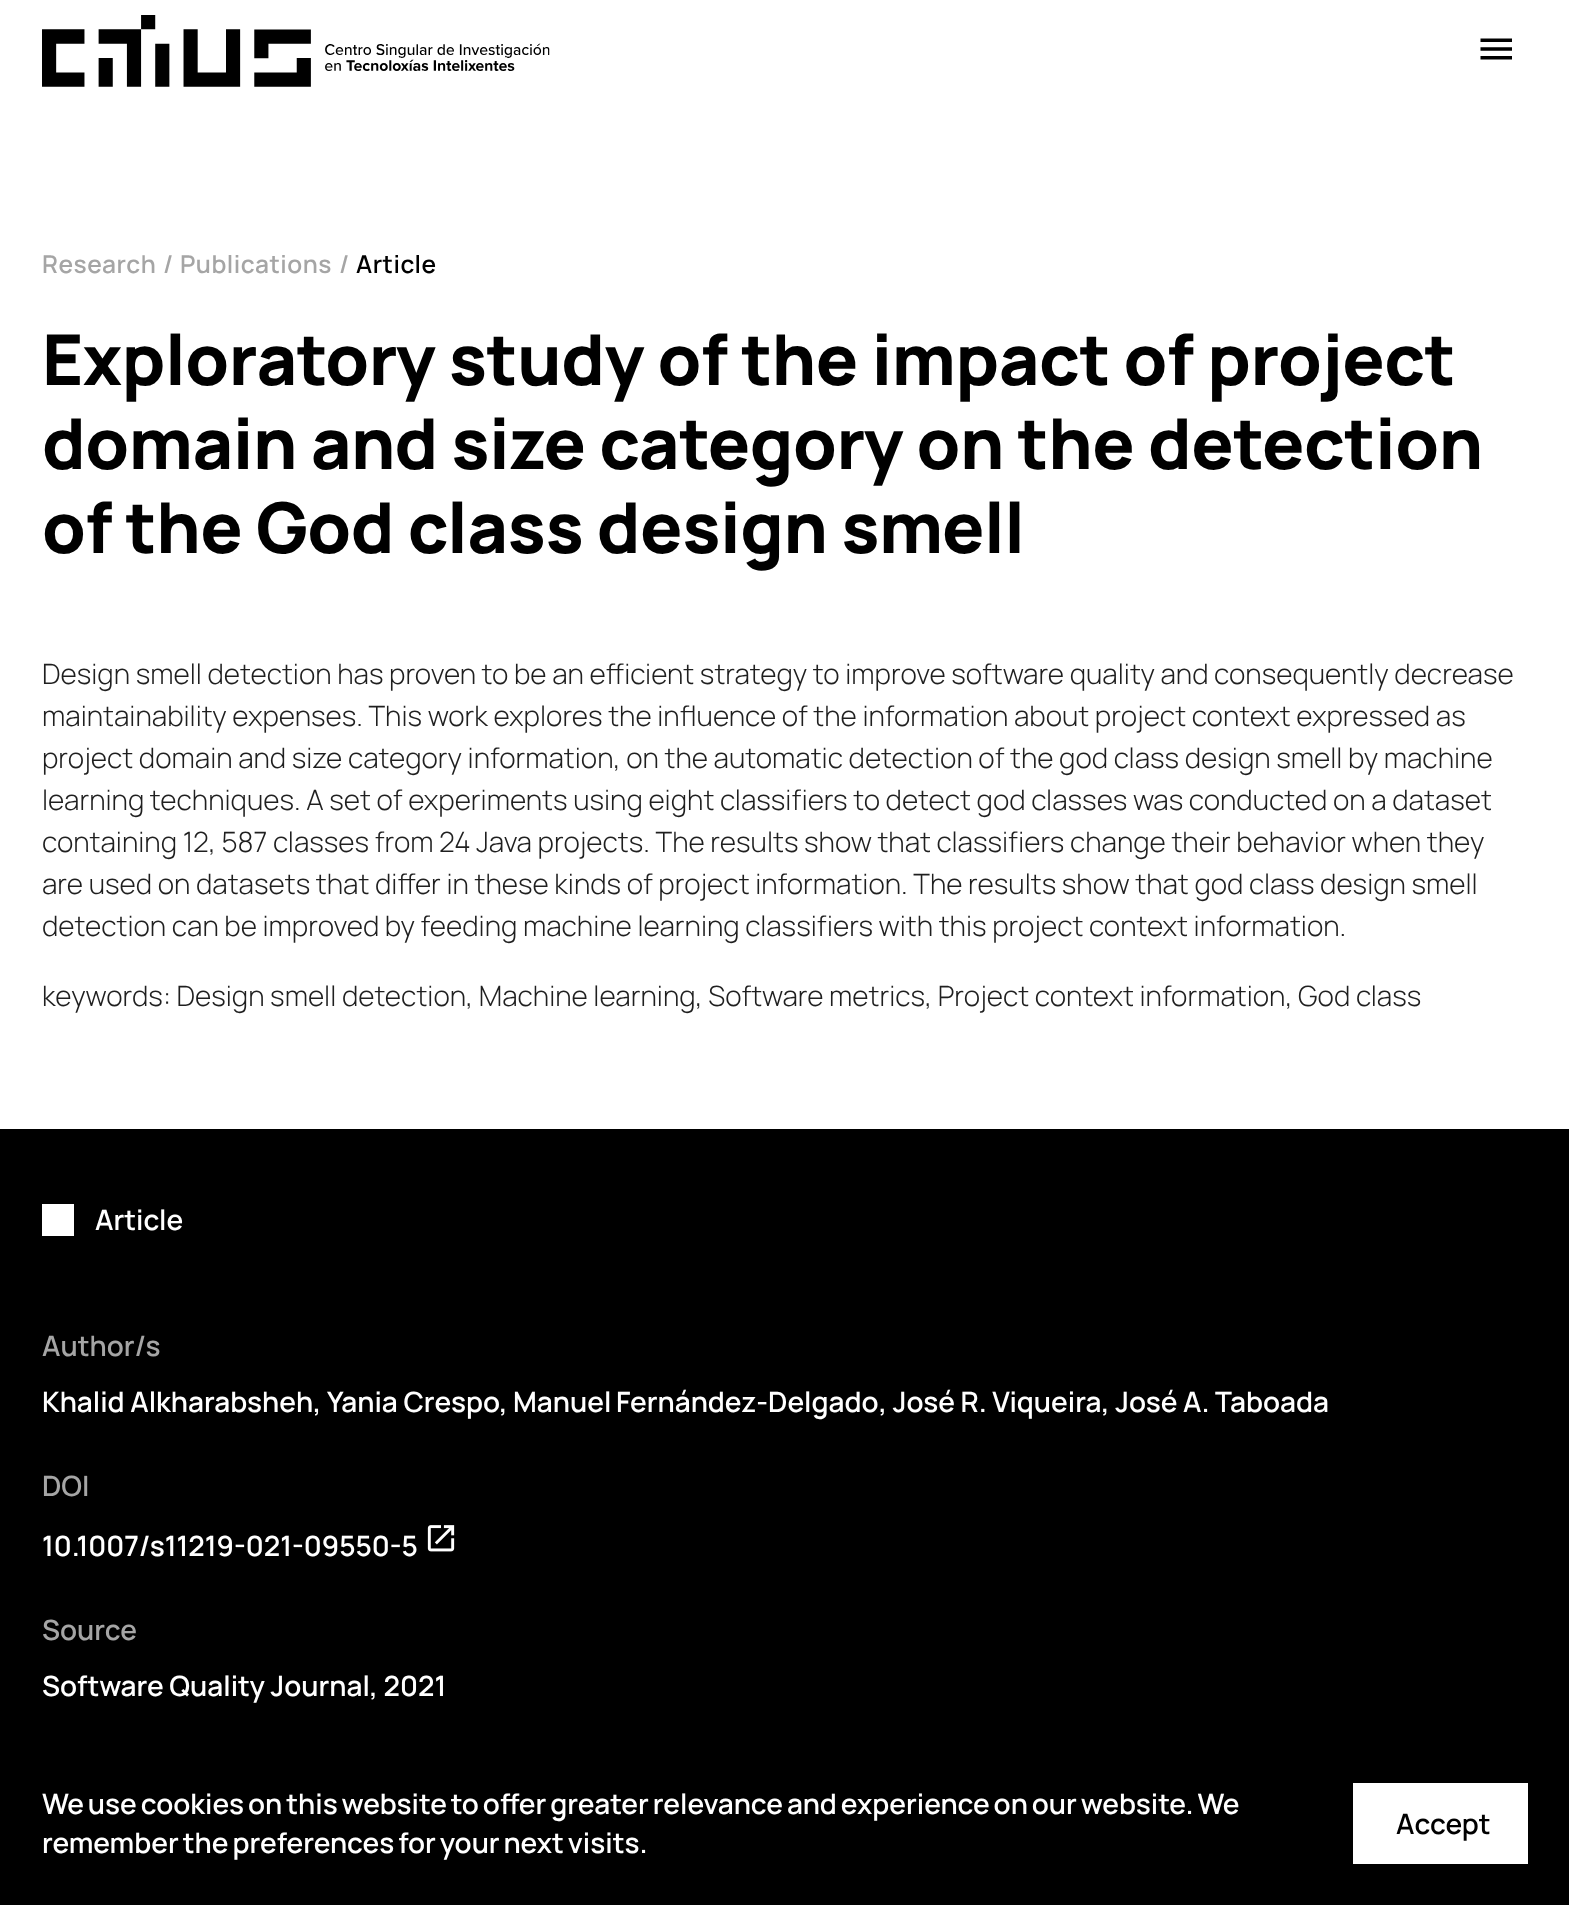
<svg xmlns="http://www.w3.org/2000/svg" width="1569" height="1905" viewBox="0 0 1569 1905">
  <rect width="100%" height="100%" fill="#fff"/>
  <image x="42" y="15" width="508" height="72" href="img/1.png"/>
  <image x="1480" y="38" width="32" height="22" href="img/2.png"/>
  <path d="M0 1129h1569v776H0z" fill="#000"/>
  <path d="M42 1204h32v32H42z" fill="#fff"/>
  <image x="427" y="1525" width="28" height="27" href="img/3.png"/>
  <path d="M1353 1783h175v81H1353z" fill="#fff"/>
  <g font-family="Manrope" font-size="24.5" font-weight="600" letter-spacing="0.5" fill="#a5a5a5">
    <text x="42" y="273">Research</text>
    <text x="163" y="273">/</text>
    <text x="180" y="273">Publications</text>
    <text x="339" y="273">/</text>
  </g>
  <text x="356" y="273" font-family="Manrope" font-size="24.5" font-weight="600" letter-spacing="0.5" fill="#000">Article</text>
  <g font-family="Manrope" font-size="70" font-weight="800" letter-spacing="-0.45" fill="#000">
    <text x="42" y="385">Exploratory study of the impact of project</text>
    <text x="42" y="469">domain and size category on the detection</text>
    <text x="42" y="553">of the God class design smell</text>
  </g>
  <g font-family="Manrope" font-size="28" font-weight="300" fill="#1f1f1f">
    <text x="42" y="684">Design smell detection has proven to be an efficient strategy to improve software quality and consequently decrease</text>
    <text x="42" y="726">maintainability expenses. This work explores the influence of the information about project context expressed as</text>
    <text x="42" y="768">project domain and size category information, on the automatic detection of the god class design smell by machine</text>
    <text x="42" y="810">learning techniques. A set of experiments using eight classifiers to detect god classes was conducted on a dataset</text>
    <text x="42" y="852">containing 12, 587 classes from 24 Java projects. The results show that classifiers change their behavior when they</text>
    <text x="42" y="894">are used on datasets that differ in these kinds of project information. The results show that god class design smell</text>
    <text x="42" y="936">detection can be improved by feeding machine learning classifiers with this project context information.</text>
    <text x="42" y="1006">keywords: Design smell detection, Machine learning, Software metrics, Project context information, God class</text>
  </g>
  <text x="95" y="1230" font-family="Manrope" font-size="28" font-weight="600" fill="#fff">Article</text>
  <text x="42" y="1356" font-family="Manrope" font-size="28" font-weight="600" fill="#a5a5a5">Author/s</text>
  <g font-family="Manrope" font-size="28" font-weight="600" fill="#fff">
    <text x="42" y="1412">Khalid Alkharabsheh, Yania Crespo,</text>
    <text x="513" y="1412" word-spacing="-1">Manuel Fernández-Delgado</text>
    <text x="879" y="1412">, José R. Viqueira, José A. Taboada</text>
  </g>
  <text x="42" y="1496" font-family="Manrope" font-size="28" font-weight="600" fill="#a5a5a5">DOI</text>
  <text x="42" y="1556" font-family="Manrope" font-size="28" font-weight="600" fill="#fff">10.1007/s11219-021-09550-5</text>
  <text x="42" y="1640" font-family="Manrope" font-size="28" font-weight="600" fill="#a5a5a5">Source</text>
  <g font-family="Manrope" font-size="28" font-weight="600" fill="#fff">
    <text x="42" y="1696">Software Quality Journal, 2021</text>
    <text x="42" y="1814" word-spacing="-1.7">We use cookies on this website to offer greater relevance and experience on our website. We</text>
    <text x="42" y="1853" word-spacing="-1.7">remember the preferences for your next visits.</text>
  </g>
  <text x="1396" y="1834" font-family="Manrope" font-size="28" font-weight="600" fill="#000">Accept</text>
</svg>
